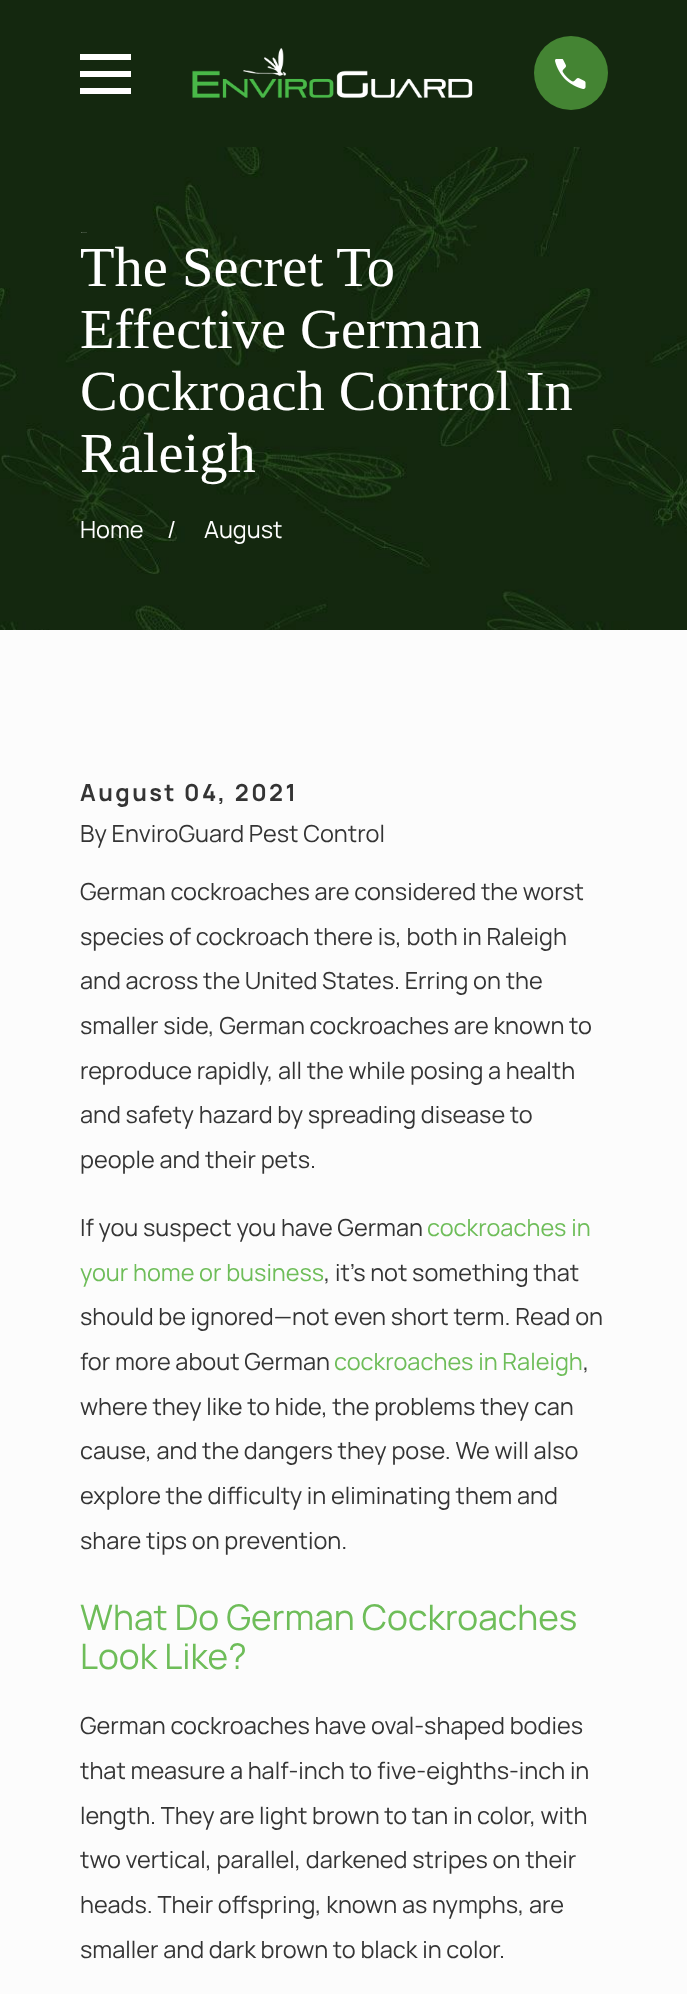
<svg xmlns="http://www.w3.org/2000/svg" width="687" height="1994" viewBox="0 0 687 1994">
  <rect width="100%" height="100%" fill="#fcfcfc"/>
  <path d="M0 0h687v147H0z" fill="#14280f"/>
  <path d="M80 54V60H131V54ZM80 71V77H131V71ZM80 88V94H131V88Z" fill="#fff"/>
  <image x="192" y="48" width="281" height="50" href="img/1.png"/>
  <circle cx="571" cy="73" r="37" fill="#448433"/>
  <image x="555" y="59" width="31" height="30" href="img/2.png"/>
  <image x="0" y="147" width="687" height="483" href="img/3.png"/>
  <path d="M81 232h6v1H81z" fill="#374833"/>
  <path d="M81 232h1v1H81z" fill="#556351"/>
  <g font-family="Liberation Serif" font-size="56.5" fill="#fff">
    <text x="80" y="286">The Secret To</text>
    <text x="80" y="348">Effective German</text>
    <text x="80" y="410">Cockroach Control In</text>
    <text x="80" y="472">Raleigh</text>
  </g>
  <g font-family="Manrope" font-size="23.5" fill="#fff">
    <text x="80" y="538">Home</text>
    <text x="167" y="538">/</text>
    <text x="204" y="538">August</text>
  </g>
  <text x="80" y="801" font-family="Manrope" font-size="23.5" font-weight="bold" letter-spacing="2.4" fill="#343434">August 04, 2021</text>
  <g font-family="Manrope" font-size="23.5" fill="#343434">
    <text x="80" y="842">By EnviroGuard Pest Control</text>
    <text x="80" y="900">German cockroaches are considered the worst</text>
    <text x="80" y="945">species of cockroach there is, both in Raleigh</text>
    <text x="80" y="989">and across the United States. Erring on the</text>
    <text x="80" y="1034">smaller side, German cockroaches are known to</text>
    <text x="80" y="1079">reproduce rapidly, all the while posing a health</text>
    <text x="80" y="1123">and safety hazard by spreading disease to</text>
    <text x="80" y="1168">people and their pets.</text>
    <text x="80" y="1236">If you suspect you have German</text>
  </g>
  <g font-family="Manrope" font-size="23.5" fill="#6ebd59">
    <text x="427" y="1236">cockroaches in</text>
    <text x="80" y="1281">your home or business</text>
  </g>
  <g font-family="Manrope" font-size="23.5" fill="#343434">
    <text x="324" y="1281">, it’s not something that</text>
    <text x="80" y="1325">should be ignored—not even short term. Read on</text>
    <text x="80" y="1370">for more about German</text>
  </g>
  <text x="334" y="1370" font-family="Manrope" font-size="23.5" fill="#6ebd59">cockroaches in Raleigh</text>
  <g font-family="Manrope" font-size="23.5" fill="#343434">
    <text x="583" y="1370">,</text>
    <text x="80" y="1415">where they like to hide, the problems they can</text>
    <text x="80" y="1459">cause, and the dangers they pose. We will also</text>
    <text x="80" y="1504">explore the difficulty in eliminating them and</text>
    <text x="80" y="1549">share tips on prevention.</text>
  </g>
  <g font-family="Manrope" font-size="35.25" fill="#6ebd59">
    <text x="80" y="1630">What Do German Cockroaches</text>
    <text x="80" y="1669">Look Like?</text>
  </g>
  <g font-family="Manrope" font-size="23.5" fill="#343434">
    <text x="80" y="1734">German cockroaches have oval-shaped bodies</text>
    <text x="80" y="1779">that measure a half-inch to five-eighths-inch in</text>
    <text x="80" y="1824">length. They are light brown to tan in color, with</text>
    <text x="80" y="1868">two vertical, parallel, darkened stripes on their</text>
    <text x="80" y="1913">heads. Their offspring, known as nymphs, are</text>
    <text x="80" y="1958">smaller and dark brown to black in color.</text>
  </g>
</svg>
